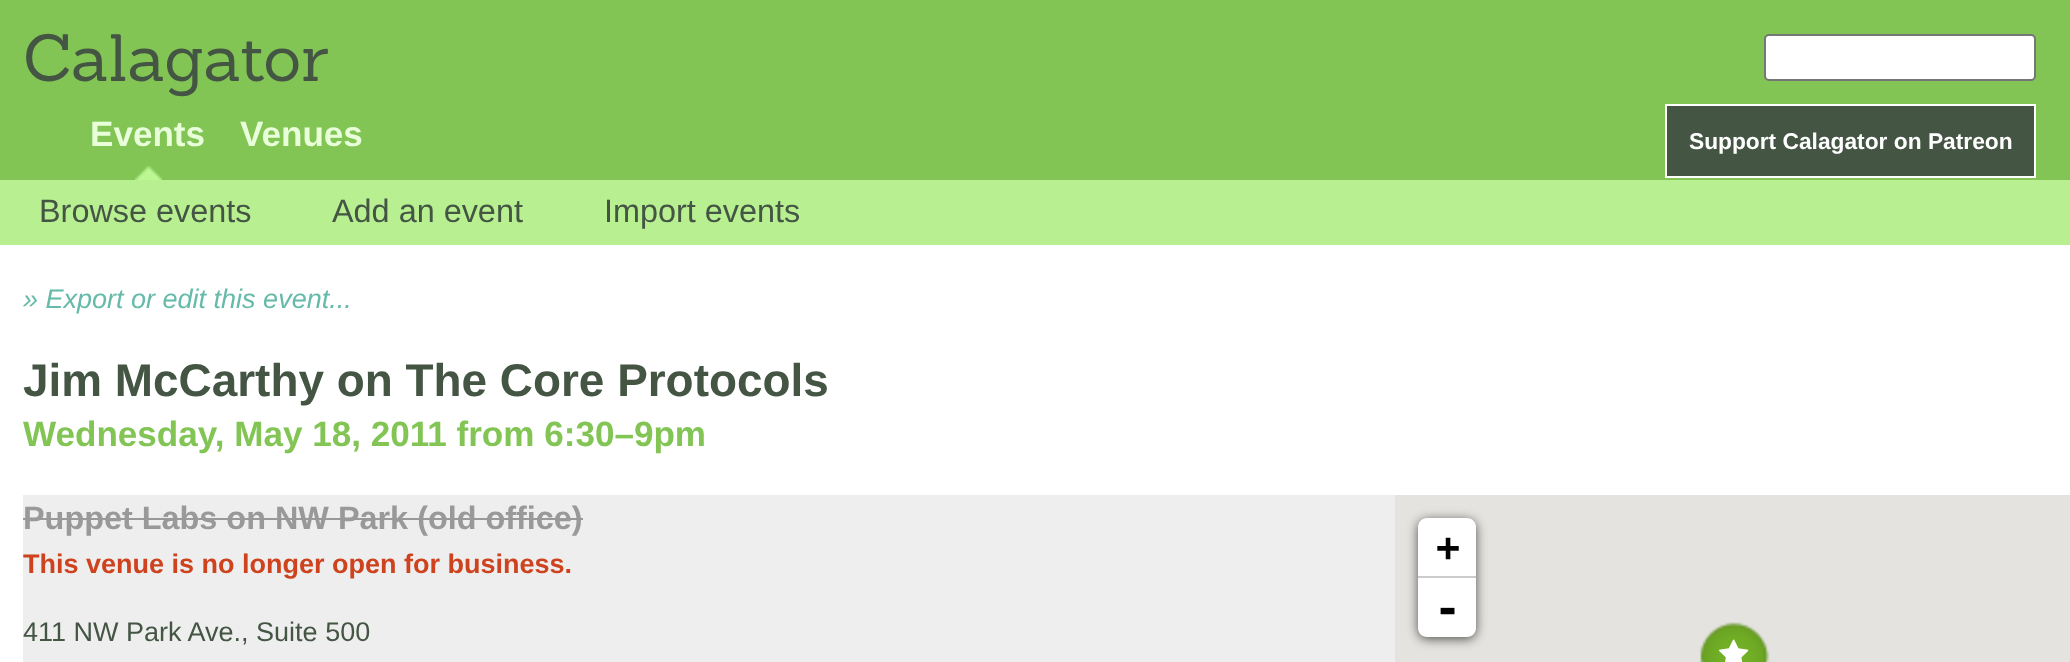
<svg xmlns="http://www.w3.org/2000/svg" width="2070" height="662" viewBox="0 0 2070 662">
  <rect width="100%" height="100%" fill="#fff"/>
  <path d="M0 0h2070v180H0z" fill="#82c555"/>
  <rect x="1765" y="35" width="270" height="45" rx="4" fill="#fff" stroke="#767676" stroke-width="2"/>
  <image x="135" y="166" width="27" height="14" href="img/1.png"/>
  <path d="M1666 105h369v72H1666z" fill="#454" stroke="#fff" stroke-width="2"/>
  <path d="M0 180h2070v65H0z" fill="#b7ef91"/>
  <path d="M23 495h1372v167H23z" fill="#eee"/>
  <path d="M23 518h560v2H23z" fill="#999"/>
  <path d="M1395 495h675v167H1395z" fill="#e5e3df"/>
  <rect x="1418" y="520" width="58" height="119" rx="9" fill="#000000a6" filter="blur(5.5px)"/>
  <path d="M1427 518H1467C1472 518 1476 522 1476 527V578H1418V527C1418 522 1422 518 1427 518Z" fill="#fff"/>
  <path d="M1418 576h58v2H1418z" fill="#ccc"/>
  <path d="M1418 578H1476V628C1476 633 1472 637 1467 637H1427C1422 637 1418 633 1418 628Z" fill="#fff"/>
  <image x="1700" y="622" width="70" height="40" href="img/2.png"/>
  <image x="1719" y="639" width="30" height="23" href="img/3.png"/>
  <text x="23" y="81" font-family="Sanchez" font-size="65.25" fill="#454">Calagator</text>
  <g font-family="Liberation Sans" font-size="35.1" font-weight="bold" fill="#e8ffd9">
    <text x="90" y="146">Events</text>
    <text x="240" y="146">Venues</text>
  </g>
  <text x="1689" y="149" font-family="Liberation Sans" font-size="22.75" font-weight="bold" fill="#fff">Support Calagator on Patreon</text>
  <g font-family="Liberation Sans" font-size="32.4" fill="#454">
    <text x="39" y="222">Browse events</text>
    <text x="332" y="222">Add an event</text>
    <text x="604" y="222">Import events</text>
  </g>
  <text x="23" y="308" font-family="Liberation Sans" font-size="27" font-style="italic" fill="#66baa9">» Export or edit this event...</text>
  <text x="23" y="396" font-family="Liberation Sans" font-size="45.9" font-weight="bold" fill="#454">Jim McCarthy on The Core Protocols</text>
  <text x="23" y="446" font-family="Liberation Sans" font-size="35.1" font-weight="bold" fill="#82c555">Wednesday, May 18, 2011 from 6:30–9pm</text>
  <text x="23" y="529" font-family="Liberation Sans" font-size="32.4" font-weight="bold" fill="#999">Puppet Labs on NW Park (old office)</text>
  <text x="23" y="573" font-family="Liberation Sans" font-size="27" font-weight="bold" fill="#ce421d">This venue is no longer open for business.</text>
  <text x="1436" y="561" font-family="DejaVu Sans Mono" font-size="40" font-weight="bold" fill="#000">+</text>
  <text x="1434" y="624" font-family="DejaVu Sans Mono" font-size="45" font-weight="bold" fill="#000">-</text>
  <text x="23" y="641" font-family="Liberation Sans" font-size="27" fill="#454">411 NW Park Ave., Suite 500</text>
</svg>
